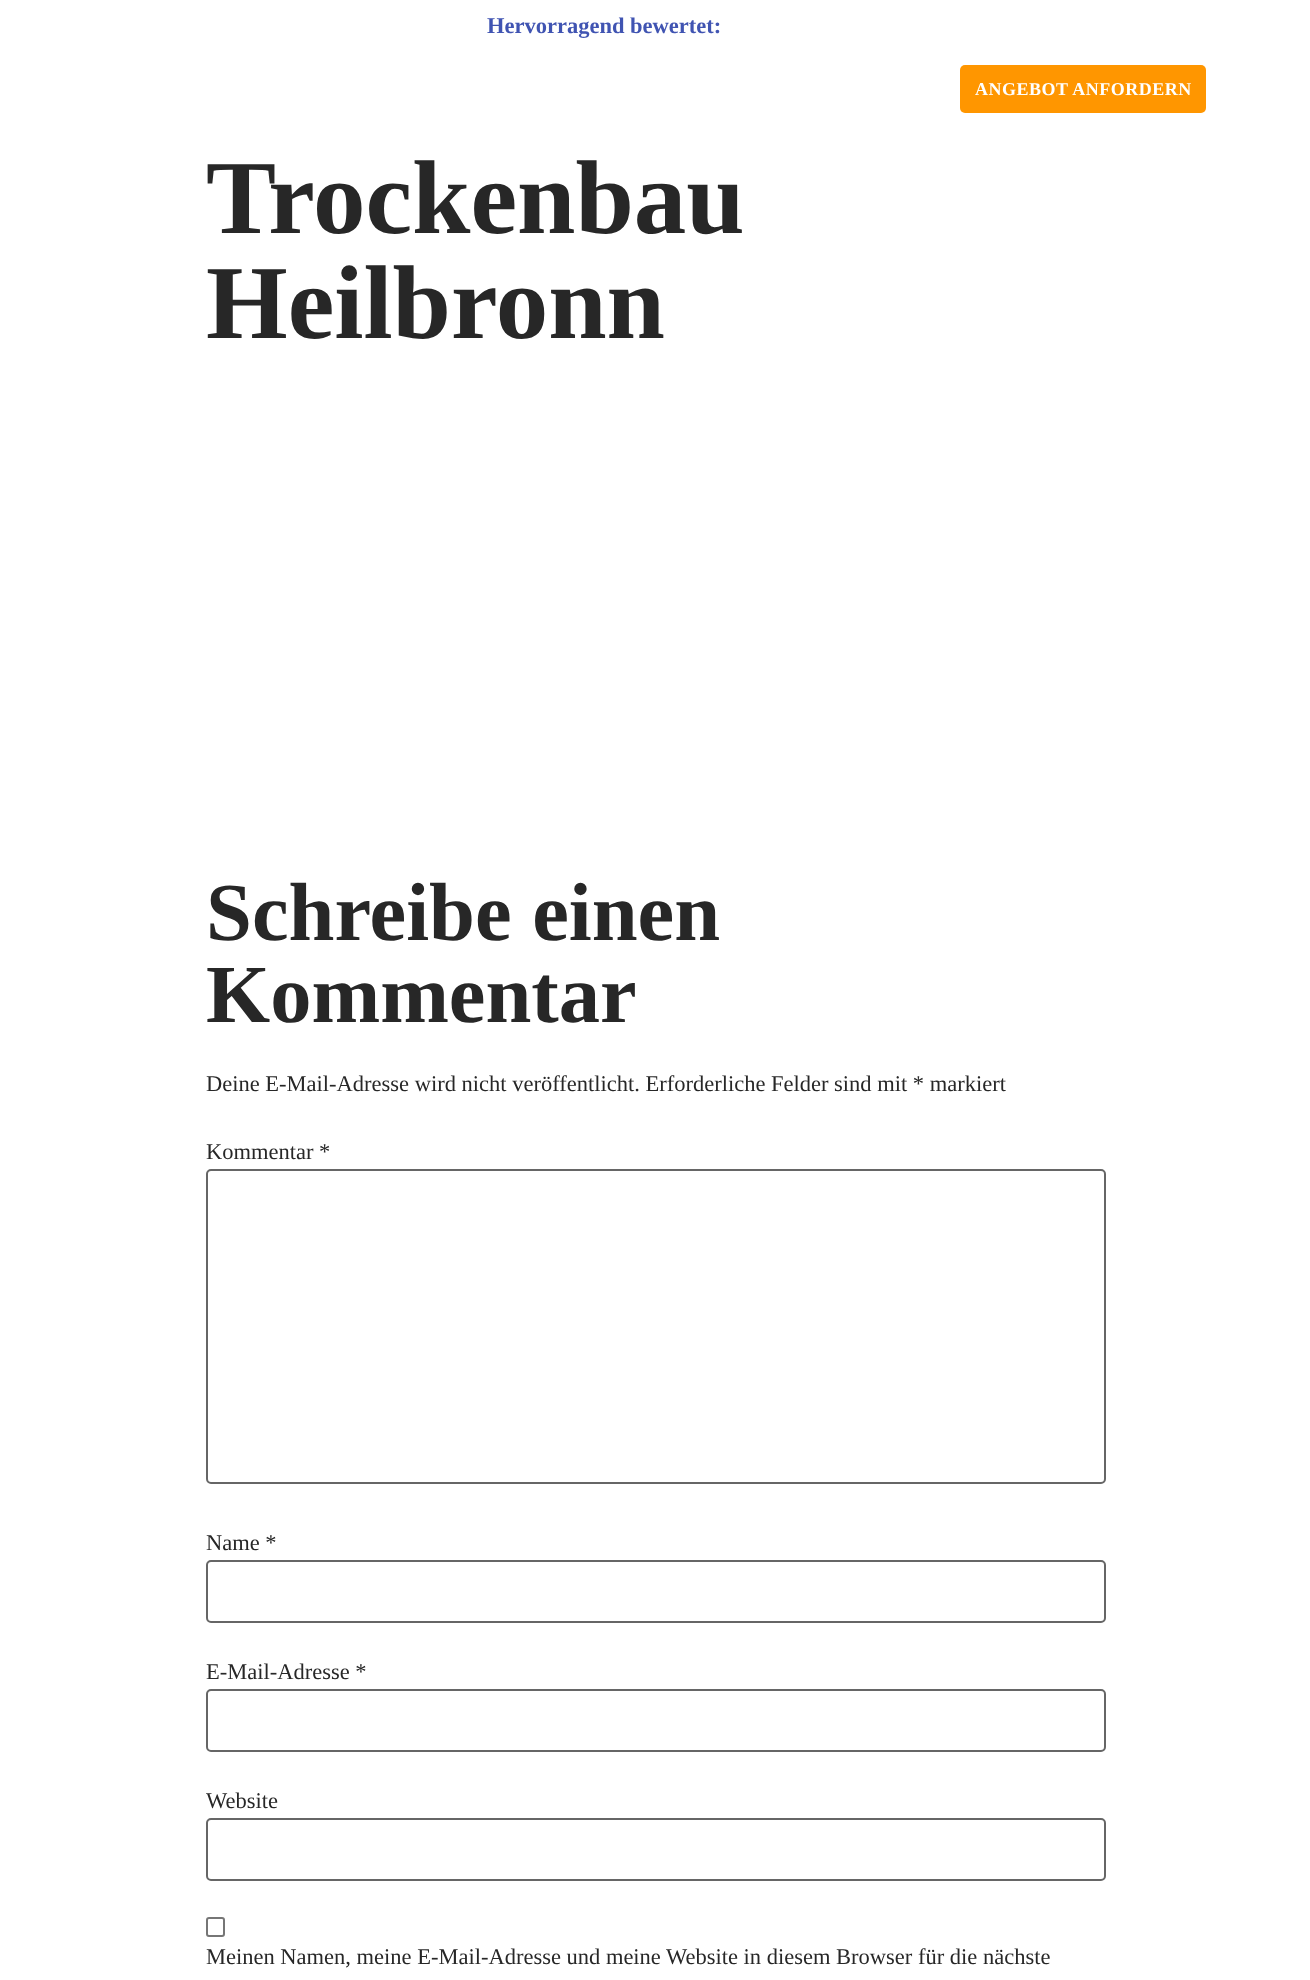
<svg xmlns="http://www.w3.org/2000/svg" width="1310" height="1980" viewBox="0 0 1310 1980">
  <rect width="100%" height="100%" fill="#fff"/>
  <rect x="960" y="65" width="246" height="48" rx="5" fill="#ff9600"/>
  <rect x="207" y="1170" width="898" height="313" rx="4" fill="none" stroke="#666" stroke-width="2"/>
  <rect x="207" y="1561" width="898" height="61" rx="4" fill="none" stroke="#666" stroke-width="2"/>
  <rect x="207" y="1690" width="898" height="61" rx="4" fill="none" stroke="#666" stroke-width="2"/>
  <rect x="207" y="1819" width="898" height="61" rx="4" fill="none" stroke="#666" stroke-width="2"/>
  <rect x="207" y="1918" width="17" height="18" rx="2" fill="none" stroke="#767676" stroke-width="2"/>
  <text x="487" y="33" font-family="Liberation Serif" font-size="22.5" font-weight="bold" fill="#4054b2">Hervorragend bewertet:</text>
  <text x="975" y="95" font-family="Liberation Serif" font-size="18" font-weight="bold" letter-spacing="0.5" fill="#fff">ANGEBOT ANFORDERN</text>
  <g font-family="Liberation Serif" font-size="105" font-weight="bold" fill="#272727">
    <text x="206" y="233">Trockenbau</text>
    <text x="206" y="338">Heilbronn</text>
  </g>
  <g font-family="Liberation Serif" font-size="82.5" font-weight="bold" fill="#272727">
    <text x="206" y="940">Schreibe einen</text>
    <text x="206" y="1022">Kommentar</text>
  </g>
  <g font-family="Liberation Serif" font-size="22.5" fill="#272727">
    <text x="206" y="1091">Deine E-Mail-Adresse wird nicht veröffentlicht. Erforderliche Felder sind mit * markiert</text>
    <text x="206" y="1159">Kommentar *</text>
    <text x="206" y="1550">Name *</text>
    <text x="206" y="1679">E-Mail-Adresse *</text>
    <text x="206" y="1808">Website</text>
    <text x="206" y="1964">Meinen Namen, meine E-Mail-Adresse und meine Website in diesem Browser für die nächste</text>
  </g>
</svg>
